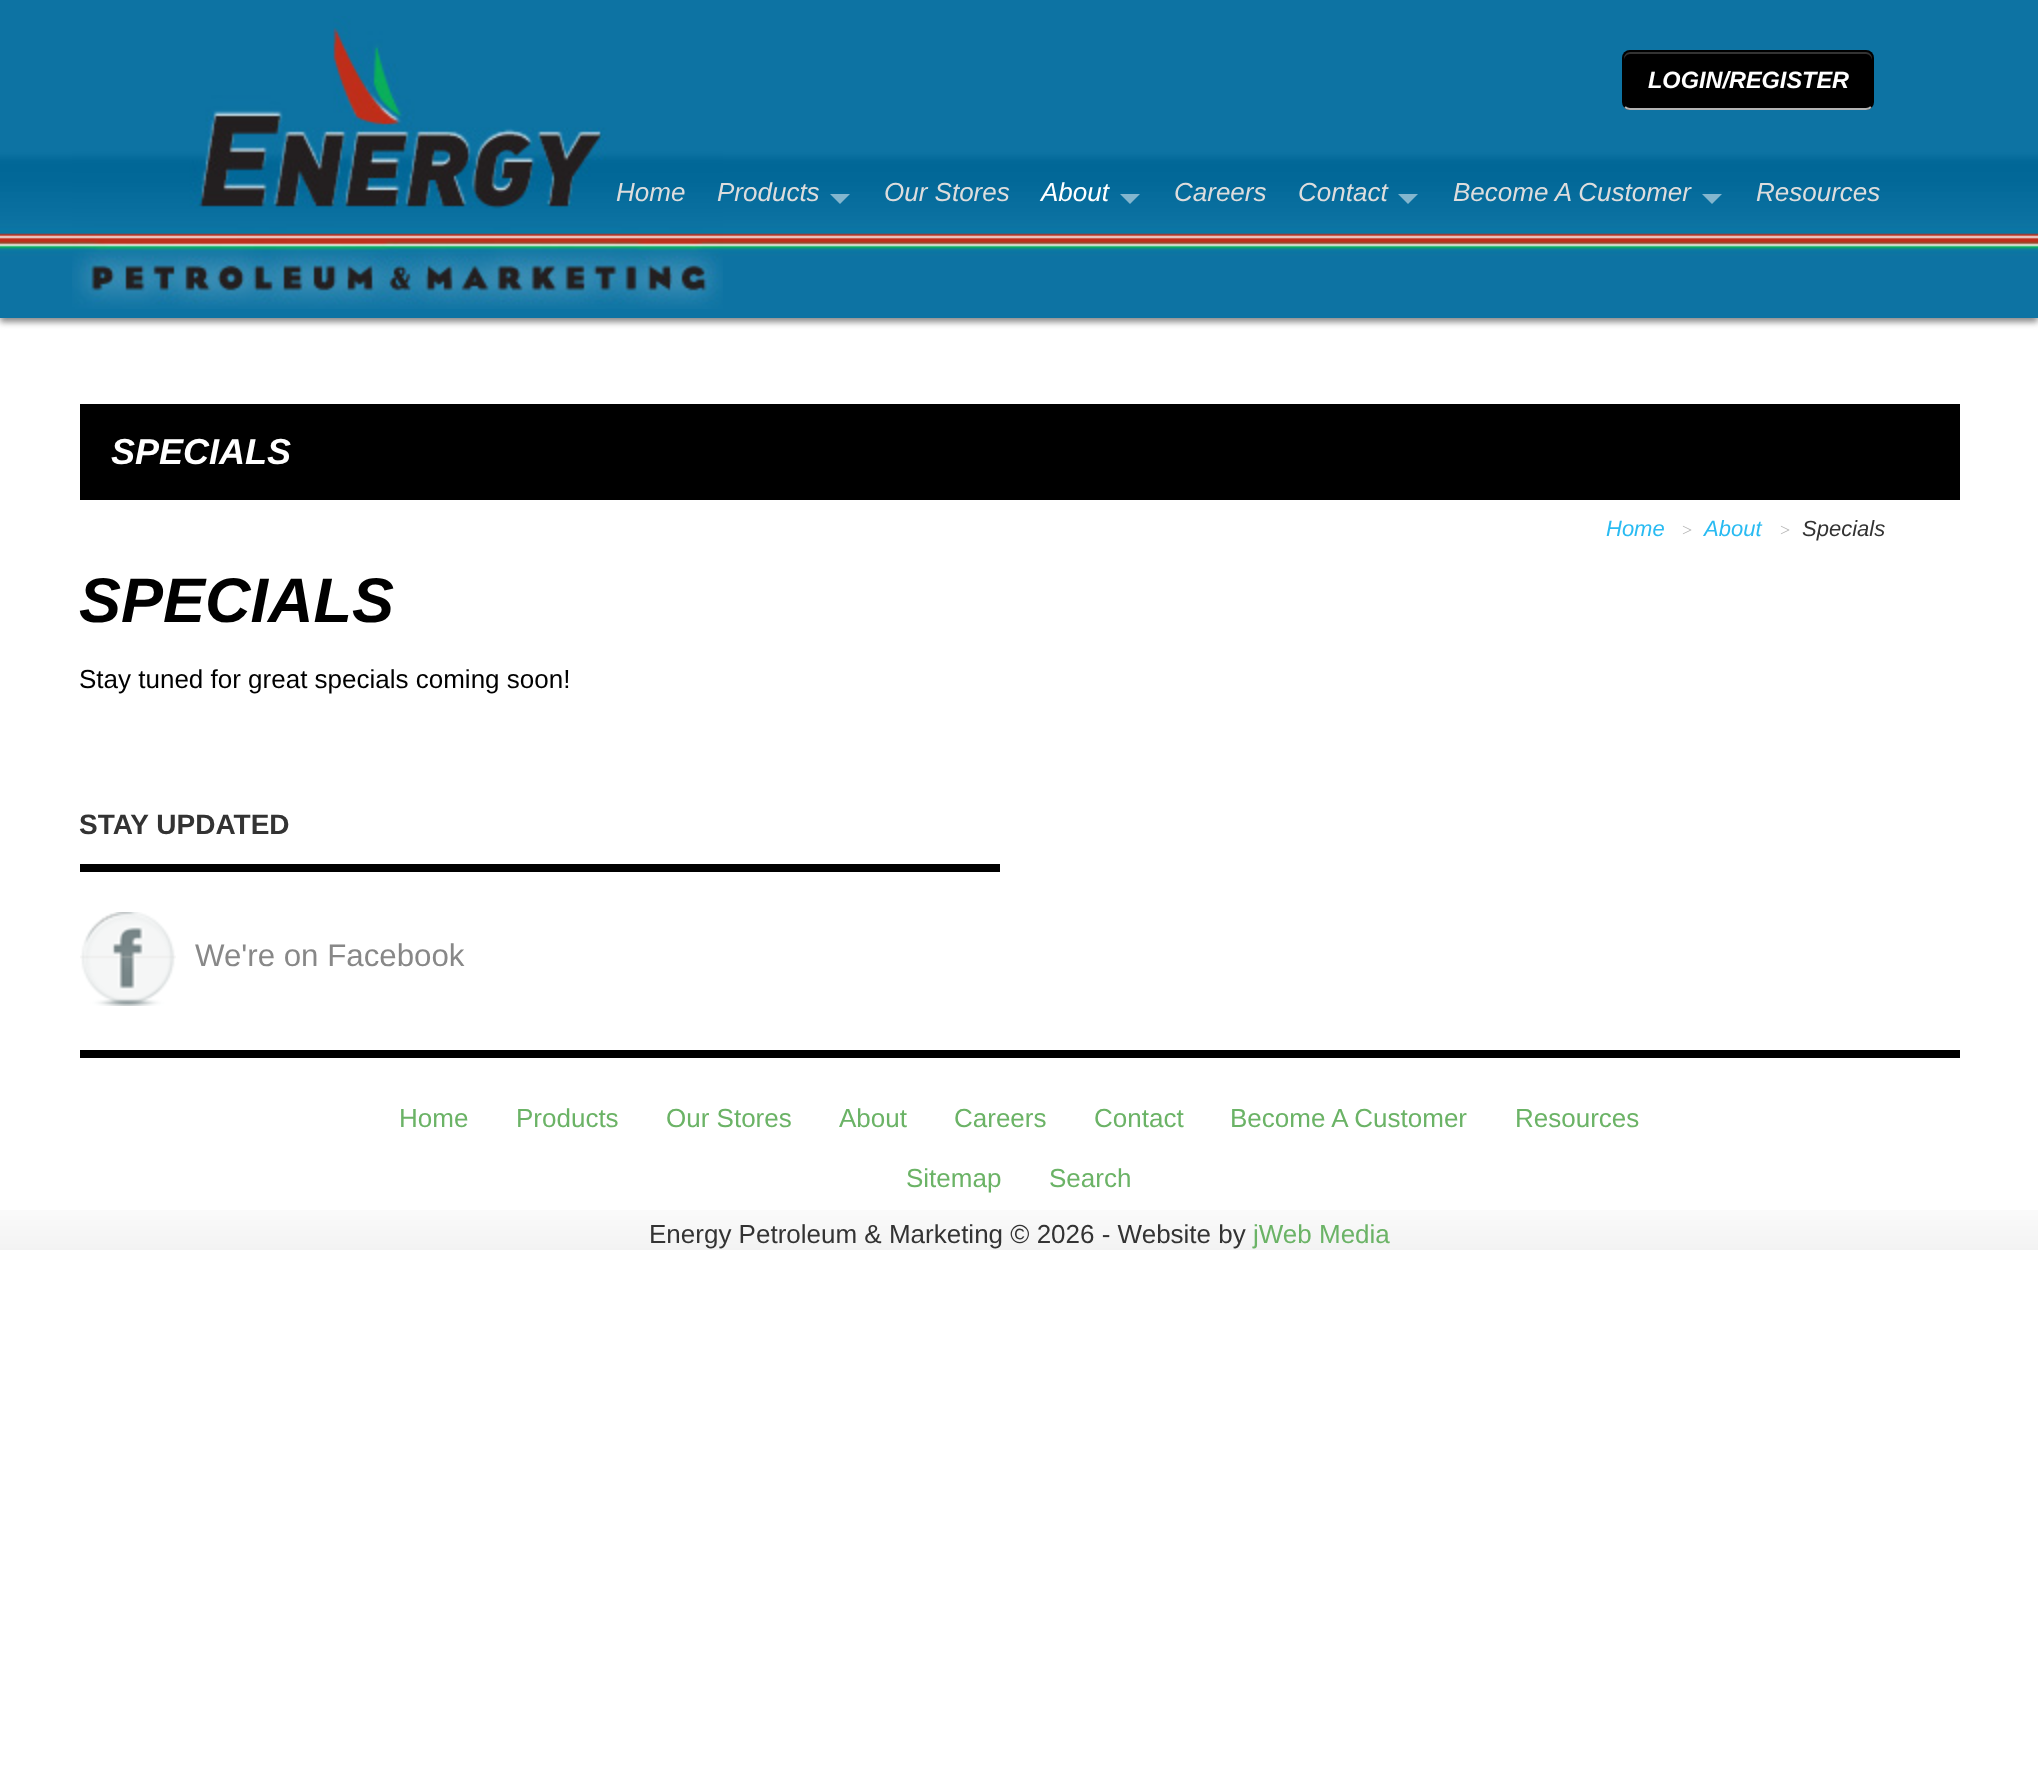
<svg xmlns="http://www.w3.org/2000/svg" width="2038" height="1789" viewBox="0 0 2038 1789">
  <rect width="100%" height="100%" fill="#fff"/>
  <path d="M0 4h2038v318H0z" fill="#888" filter="blur(3px)"/>
  <image x="0" y="0" width="2038" height="318" href="img/1.png"/>
  <image x="72" y="16" width="651" height="293" href="img/2.png"/>
  <rect x="1622" y="50" width="252" height="60" rx="8" fill="#000"/>
  <path d="M1630 54H1866C1869 54 1872 57 1872 60V58C1872 55 1869 52 1866 52H1630C1627 52 1624 55 1624 58V60C1624 57 1627 54 1630 54Z" fill="#333"/>
  <path d="M1871 107C1869.5 108.5 1868 109 1866 109H1630C1628 109 1626.5 108.5 1625 107" fill="none" stroke="#b3b3b3" stroke-width="2"/>
  <path d="M1625 107C1623.5 105.5 1623 104 1623 102V58C1623 56 1623.5 54.5 1625 53C1626.5 51.5 1628 51 1630 51H1866C1868 51 1869.5 51.5 1871 53C1872.5 54.5 1873 56 1873 58V102C1873 104 1872.5 105.5 1871 107" fill="none" stroke="#0000001a" stroke-width="2"/>
  <path d="M830 194H850L840 204Z" fill="#83b6ce"/>
  <path d="M1120 194H1140L1130 204Z" fill="#83b6ce"/>
  <path d="M1398 194H1418L1408 204Z" fill="#83b6ce"/>
  <path d="M1702 194H1722L1712 204Z" fill="#83b6ce"/>
  <path d="M80 404h1880v96H80z" fill="#000"/>
  <path d="M80 864h920v8H80z" fill="#000"/>
  <image x="80" y="912" width="96" height="94" href="img/3.png"/>
  <image x="0" y="1210" width="2038" height="40" href="img/4.png"/>
  <path d="M80 1050h1880v8H80z" fill="#000"/>
  <text x="1648" y="88" font-family="Liberation Sans" font-size="23.5" font-weight="bold" font-style="italic" fill="#fff">LOGIN/REGISTER</text>
  <g font-family="Liberation Sans" font-size="26" font-style="italic" fill="#ddd">
    <text x="616" y="201">Home</text>
    <text x="717" y="201">Products</text>
    <text x="884" y="201">Our Stores</text>
  </g>
  <text x="1041" y="201" font-family="Liberation Sans" font-size="26" font-style="italic" fill="#fff">About</text>
  <g font-family="Liberation Sans" font-size="26" font-style="italic" fill="#ddd">
    <text x="1174" y="201">Careers</text>
    <text x="1298" y="201">Contact</text>
    <text x="1453" y="201">Become A Customer</text>
    <text x="1756" y="201">Resources</text>
  </g>
  <text x="111" y="464" font-family="Liberation Sans" font-size="36" font-weight="bold" font-style="italic" fill="#fff">SPECIALS</text>
  <text x="1606" y="536" font-family="Liberation Sans" font-size="22" font-style="italic" fill="#29bbf2">Home</text>
  <text x="1682" y="536" font-family="Liberation Serif" font-size="18" fill="#b3b3b3">&gt;</text>
  <text x="1704" y="536" font-family="Liberation Sans" font-size="22" font-style="italic" fill="#29bbf2">About</text>
  <text x="1780" y="536" font-family="Liberation Serif" font-size="18" fill="#b3b3b3">&gt;</text>
  <text x="1802" y="536" font-family="Liberation Sans" font-size="22" font-style="italic" fill="#333">Specials</text>
  <text x="79" y="622" font-family="Liberation Sans" font-size="63" font-weight="bold" font-style="italic" fill="#000">SPECIALS</text>
  <text x="79" y="688" font-family="Liberation Sans" font-size="26" fill="#000">Stay tuned for great specials coming soon!</text>
  <text x="79" y="834" font-family="Liberation Sans" font-size="28" font-weight="bold" fill="#333">STAY UPDATED</text>
  <text x="195" y="966" font-family="Liberation Sans" font-size="31.25" fill="#888">We're on Facebook</text>
  <g font-family="Liberation Sans" font-size="26" fill="#6bb366">
    <text x="399" y="1127">Home</text>
    <text x="516" y="1127">Products</text>
    <text x="666" y="1127">Our Stores</text>
    <text x="839" y="1127">About</text>
    <text x="954" y="1127">Careers</text>
    <text x="1094" y="1127">Contact</text>
    <text x="1230" y="1127">Become A Customer</text>
    <text x="1515" y="1127">Resources</text>
    <text x="906" y="1187">Sitemap</text>
    <text x="1049" y="1187">Search</text>
  </g>
  <text x="649" y="1243" font-family="Liberation Sans" font-size="26" fill="#333">Energy Petroleum &amp; Marketing © 2026 - Website by</text>
  <text x="1253" y="1243" font-family="Liberation Sans" font-size="26" fill="#6bb366">jWeb Media</text>
</svg>
